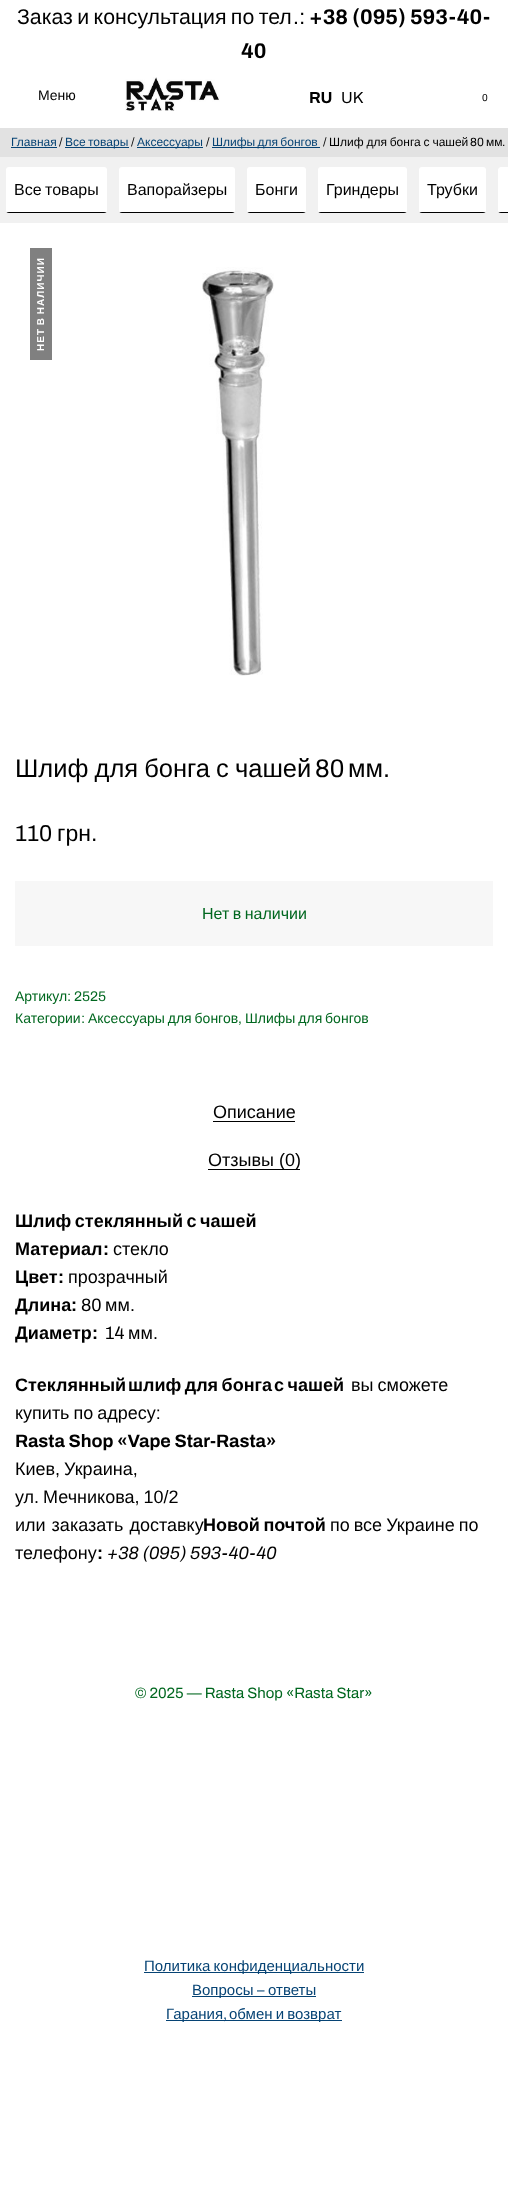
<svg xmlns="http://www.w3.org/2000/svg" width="508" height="2201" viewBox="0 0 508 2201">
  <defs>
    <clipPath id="clip1"><rect x="6" y="167" width="101" height="46" rx="3"/></clipPath>
    <clipPath id="clip2"><rect x="119" y="167" width="116" height="46" rx="3"/></clipPath>
    <clipPath id="clip3"><rect x="247" y="167" width="59" height="46" rx="3"/></clipPath>
    <clipPath id="clip4"><rect x="318" y="167" width="89" height="46" rx="3"/></clipPath>
    <clipPath id="clip5"><rect x="419" y="167" width="67" height="46" rx="3"/></clipPath>
    <clipPath id="clip6"><rect x="498" y="167" width="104" height="46" rx="3"/></clipPath>
  </defs>
  <rect width="100%" height="100%" fill="#fff"/>
  <image x="125" y="77" width="95" height="34" href="img/1.png"/>
  <path d="M0 128h508v29H0z" fill="#e2e2e2"/>
  <path d="M11 147h46v1H11z" fill="#064374"/>
  <path d="M65 147h64v1H65z" fill="#064374"/>
  <path d="M137 147h66v1H137z" fill="#064374"/>
  <path d="M212 147h108v1H212z" fill="#064374"/>
  <path d="M0 157h508v66H0z" fill="#f1f1f1"/>
  <rect x="6" y="167" width="101" height="46" rx="3" fill="#fff"/>
  <g clip-path="url(#clip1)">
    <path d="M6 212h101v1H6z" fill="#000"/>
  </g>
  <rect x="119" y="167" width="116" height="46" rx="3" fill="#fff"/>
  <g clip-path="url(#clip2)">
    <path d="M119 212h116v1H119z" fill="#000"/>
  </g>
  <rect x="247" y="167" width="59" height="46" rx="3" fill="#fff"/>
  <g clip-path="url(#clip3)">
    <path d="M247 212h59v1H247z" fill="#000"/>
  </g>
  <rect x="318" y="167" width="89" height="46" rx="3" fill="#fff"/>
  <g clip-path="url(#clip4)">
    <path d="M318 212h89v1H318z" fill="#000"/>
  </g>
  <rect x="419" y="167" width="67" height="46" rx="3" fill="#fff"/>
  <g clip-path="url(#clip5)">
    <path d="M419 212h67v1H419z" fill="#000"/>
  </g>
  <path d="M501 167H508V213H501C499.5 213 498 211.5 498 210V170C498 168.5 499.5 167 501 167Z" fill="#fff"/>
  <g clip-path="url(#clip6)">
    <path d="M498 212h10v1H498z" fill="#000"/>
  </g>
  <path d="M30 248h22v112H30z" fill="#808080"/>
  <image x="202" y="267" width="72" height="409" href="img/2.png"/>
  <path d="M15 881h478v65H15z" fill="#f7f7f7"/>
  <path d="M213 1121h82v1H213z" fill="#000"/>
  <path d="M208 1169h92v1H208z" fill="#000"/>
  <path d="M144 1972h220v1H144z" fill="#064374"/>
  <path d="M192 1996h124v1H192z" fill="#064374"/>
  <path d="M166 2020h176v1H166z" fill="#064374"/>
  <text x="17" y="24" word-spacing="-1.5" font-family="Liberation Sans" font-size="21.3" fill="#000">Заказ и консультация по тел</text>
  <text x="293" y="24" font-family="Archivo" font-size="21.3" fill="#000">.:</text>
  <g font-family="Archivo" font-size="21.3" font-weight="bold" fill="#000">
    <text x="309" y="24">+38 (095) 593-40-</text>
    <text x="241" y="58">40</text>
  </g>
  <text x="38" y="100" font-family="Liberation Sans" font-size="14" fill="#000">Меню</text>
  <text x="309" y="103" font-family="Archivo" font-size="16" font-weight="bold" fill="#000">RU</text>
  <text x="341" y="103" font-family="Archivo" font-size="16" fill="#000">UK</text>
  <text x="482" y="101" font-family="Archivo" font-size="10" fill="#000">0</text>
  <text x="11" y="146" font-family="Liberation Sans" font-size="12" fill="#064374">Главная</text>
  <text x="59" y="146" font-family="Archivo" font-size="12" fill="#000">/</text>
  <text x="65" y="146" word-spacing="-1" font-family="Liberation Sans" font-size="12" fill="#064374">Все товары</text>
  <text x="131" y="146" font-family="Archivo" font-size="12" fill="#000">/</text>
  <text x="137" y="146" font-family="Liberation Sans" font-size="12" fill="#064374">Аксессуары</text>
  <text x="206" y="146" font-family="Archivo" font-size="12" fill="#000">/</text>
  <text x="212" y="146" word-spacing="-1" font-family="Liberation Sans" font-size="12" fill="#064374">Шлифы для бонгов</text>
  <text x="323" y="146" font-family="Archivo" font-size="12" fill="#000">/</text>
  <text x="329" y="146" word-spacing="-0.5" font-family="Liberation Sans" font-size="12" fill="#000">Шлиф для бонга с чашей</text>
  <text x="470" y="146" font-family="Archivo" font-size="12" fill="#000">80</text>
  <text x="486" y="146" font-family="Liberation Sans" font-size="12" fill="#000">мм</text>
  <text x="502" y="146" font-family="Archivo" font-size="12" fill="#000">.</text>
  <g font-family="Liberation Sans" font-size="16" fill="#000">
    <text x="14" y="195" word-spacing="-1">Все товары</text>
    <text x="127" y="195">Вапорайзеры</text>
    <text x="255" y="195">Бонги</text>
    <text x="326" y="195">Гриндеры</text>
    <text x="427" y="195">Трубки</text>
  </g>
  <text x="44" y="351" transform="rotate(-90 44 351)" word-spacing="-1" font-family="Liberation Sans" font-size="10" font-weight="bold" letter-spacing="1" fill="#fff">НЕТ В НАЛИЧИИ</text>
  <text x="15" y="777" word-spacing="-1" font-family="Liberation Sans" font-size="25.5" fill="#000">Шлиф для бонга с чашей</text>
  <text x="315" y="777" font-family="Archivo" font-size="25.5" fill="#000">80</text>
  <text x="348" y="777" font-family="Liberation Sans" font-size="25.5" fill="#000">мм</text>
  <text x="383" y="777" font-family="Archivo" font-size="25.5" fill="#000">.</text>
  <text x="15" y="841" font-family="Archivo" font-size="23" fill="#000">110</text>
  <text x="57" y="841" font-family="Liberation Sans" font-size="23" fill="#000">грн.</text>
  <text x="202" y="919" word-spacing="-1" font-family="Liberation Sans" font-size="16" fill="#00671f">Нет в наличии</text>
  <text x="15" y="1001" font-family="Liberation Sans" font-size="14" fill="#00671f">Артикул</text>
  <text x="67" y="1001" font-family="Archivo" font-size="14" fill="#00671f">: 2525</text>
  <text x="15" y="1023" font-family="Liberation Sans" font-size="14" fill="#00671f">Категории</text>
  <text x="81" y="1023" font-family="Archivo" font-size="14" fill="#00671f">:</text>
  <g font-family="Liberation Sans" font-size="14" fill="#00671f">
    <text x="88" y="1023" word-spacing="-1">Аксессуары для бонгов</text>
    <text x="245" y="1023" word-spacing="-1">Шлифы для бонгов</text>
  </g>
  <text x="238" y="1023" font-family="Archivo" font-size="14" fill="#00671f">,</text>
  <g font-family="Liberation Sans" font-size="18" fill="#000">
    <text x="213" y="1118">Описание</text>
    <text x="208" y="1166">Отзывы (0)</text>
  </g>
  <g font-family="Liberation Sans" font-size="18" font-weight="bold" fill="#000">
    <text x="15" y="1227" word-spacing="-1.5">Шлиф стеклянный с чашей</text>
    <text x="15" y="1255">Материал</text>
  </g>
  <text x="103" y="1255" font-family="Archivo" font-size="18" font-weight="bold" fill="#000">:</text>
  <text x="113" y="1255" font-family="Liberation Sans" font-size="18" fill="#000">стекло</text>
  <text x="15" y="1283" font-family="Liberation Sans" font-size="18" font-weight="bold" fill="#000">Цвет</text>
  <text x="58" y="1283" font-family="Archivo" font-size="18" font-weight="bold" fill="#000">:</text>
  <text x="68" y="1283" font-family="Liberation Sans" font-size="18" fill="#000">прозрачный</text>
  <text x="15" y="1311" font-family="Liberation Sans" font-size="18" font-weight="bold" fill="#000">Длина</text>
  <text x="71" y="1311" font-family="Archivo" font-size="18" font-weight="bold" fill="#000">:</text>
  <text x="81" y="1311" font-family="Archivo" font-size="18" fill="#000">80</text>
  <text x="105" y="1311" font-family="Liberation Sans" font-size="18" fill="#000">мм</text>
  <text x="130" y="1311" font-family="Archivo" font-size="18" fill="#000">.</text>
  <text x="15" y="1339" font-family="Liberation Sans" font-size="18" font-weight="bold" fill="#000">Диаметр</text>
  <text x="92" y="1339" font-family="Archivo" font-size="18" font-weight="bold" fill="#000">:</text>
  <text x="105" y="1339" font-family="Archivo" font-size="18" fill="#000">14</text>
  <text x="128" y="1339" font-family="Liberation Sans" font-size="18" fill="#000">мм</text>
  <text x="153" y="1339" font-family="Archivo" font-size="18" fill="#000">.</text>
  <g font-family="Liberation Sans" font-size="18" font-weight="bold" fill="#000">
    <text x="15" y="1391">Стеклянный</text>
    <text x="128" y="1391" word-spacing="-1.5">шлиф для бонга</text>
    <text x="274" y="1391" word-spacing="-1.5">с чашей</text>
  </g>
  <g font-family="Liberation Sans" font-size="18" fill="#000">
    <text x="351" y="1391" word-spacing="-1">вы сможете</text>
    <text x="15" y="1419" word-spacing="-1">купить по адресу:</text>
  </g>
  <text x="15" y="1447" font-family="Archivo" font-size="18" font-weight="bold" fill="#000">Rasta Shop «Vape Star-Rasta»</text>
  <g font-family="Liberation Sans" font-size="18" fill="#000">
    <text x="15" y="1475" word-spacing="-1">Киев, Украина,</text>
    <text x="15" y="1503" word-spacing="-1">ул. Мечникова, 10/2</text>
    <text x="15" y="1531" word-spacing="1">или заказать доставку</text>
  </g>
  <text x="203" y="1531" word-spacing="-1.5" font-family="Liberation Sans" font-size="18" font-weight="bold" fill="#000">Новой почтой</text>
  <g font-family="Liberation Sans" font-size="18" fill="#000">
    <text x="330" y="1531" word-spacing="-1">по все Украине по</text>
    <text x="15" y="1559">телефону</text>
  </g>
  <text x="97" y="1559" font-family="Archivo" font-size="18" font-weight="bold" fill="#000">:</text>
  <text x="107" y="1559" font-family="Archivo" font-size="18" font-style="italic" fill="#000">+38 (095) 593-40-40</text>
  <text x="135" y="1698" font-family="Archivo" font-size="15" fill="#00671f">© 2025 — Rasta Shop «Rasta Star»</text>
  <g font-family="Liberation Sans" font-size="15" fill="#064374">
    <text x="144" y="1971" word-spacing="-1">Политика конфиденциальности</text>
    <text x="192" y="1995">Вопросы</text>
  </g>
  <text x="257" y="1995" font-family="Archivo" font-size="15" fill="#064374">–</text>
  <g font-family="Liberation Sans" font-size="15" fill="#064374">
    <text x="268" y="1995">ответы</text>
    <text x="166" y="2019">Гарания</text>
  </g>
  <text x="223" y="2019" font-family="Archivo" font-size="15" fill="#064374">,</text>
  <text x="229" y="2019" word-spacing="-1" font-family="Liberation Sans" font-size="15" fill="#064374">обмен и возврат</text>
</svg>
